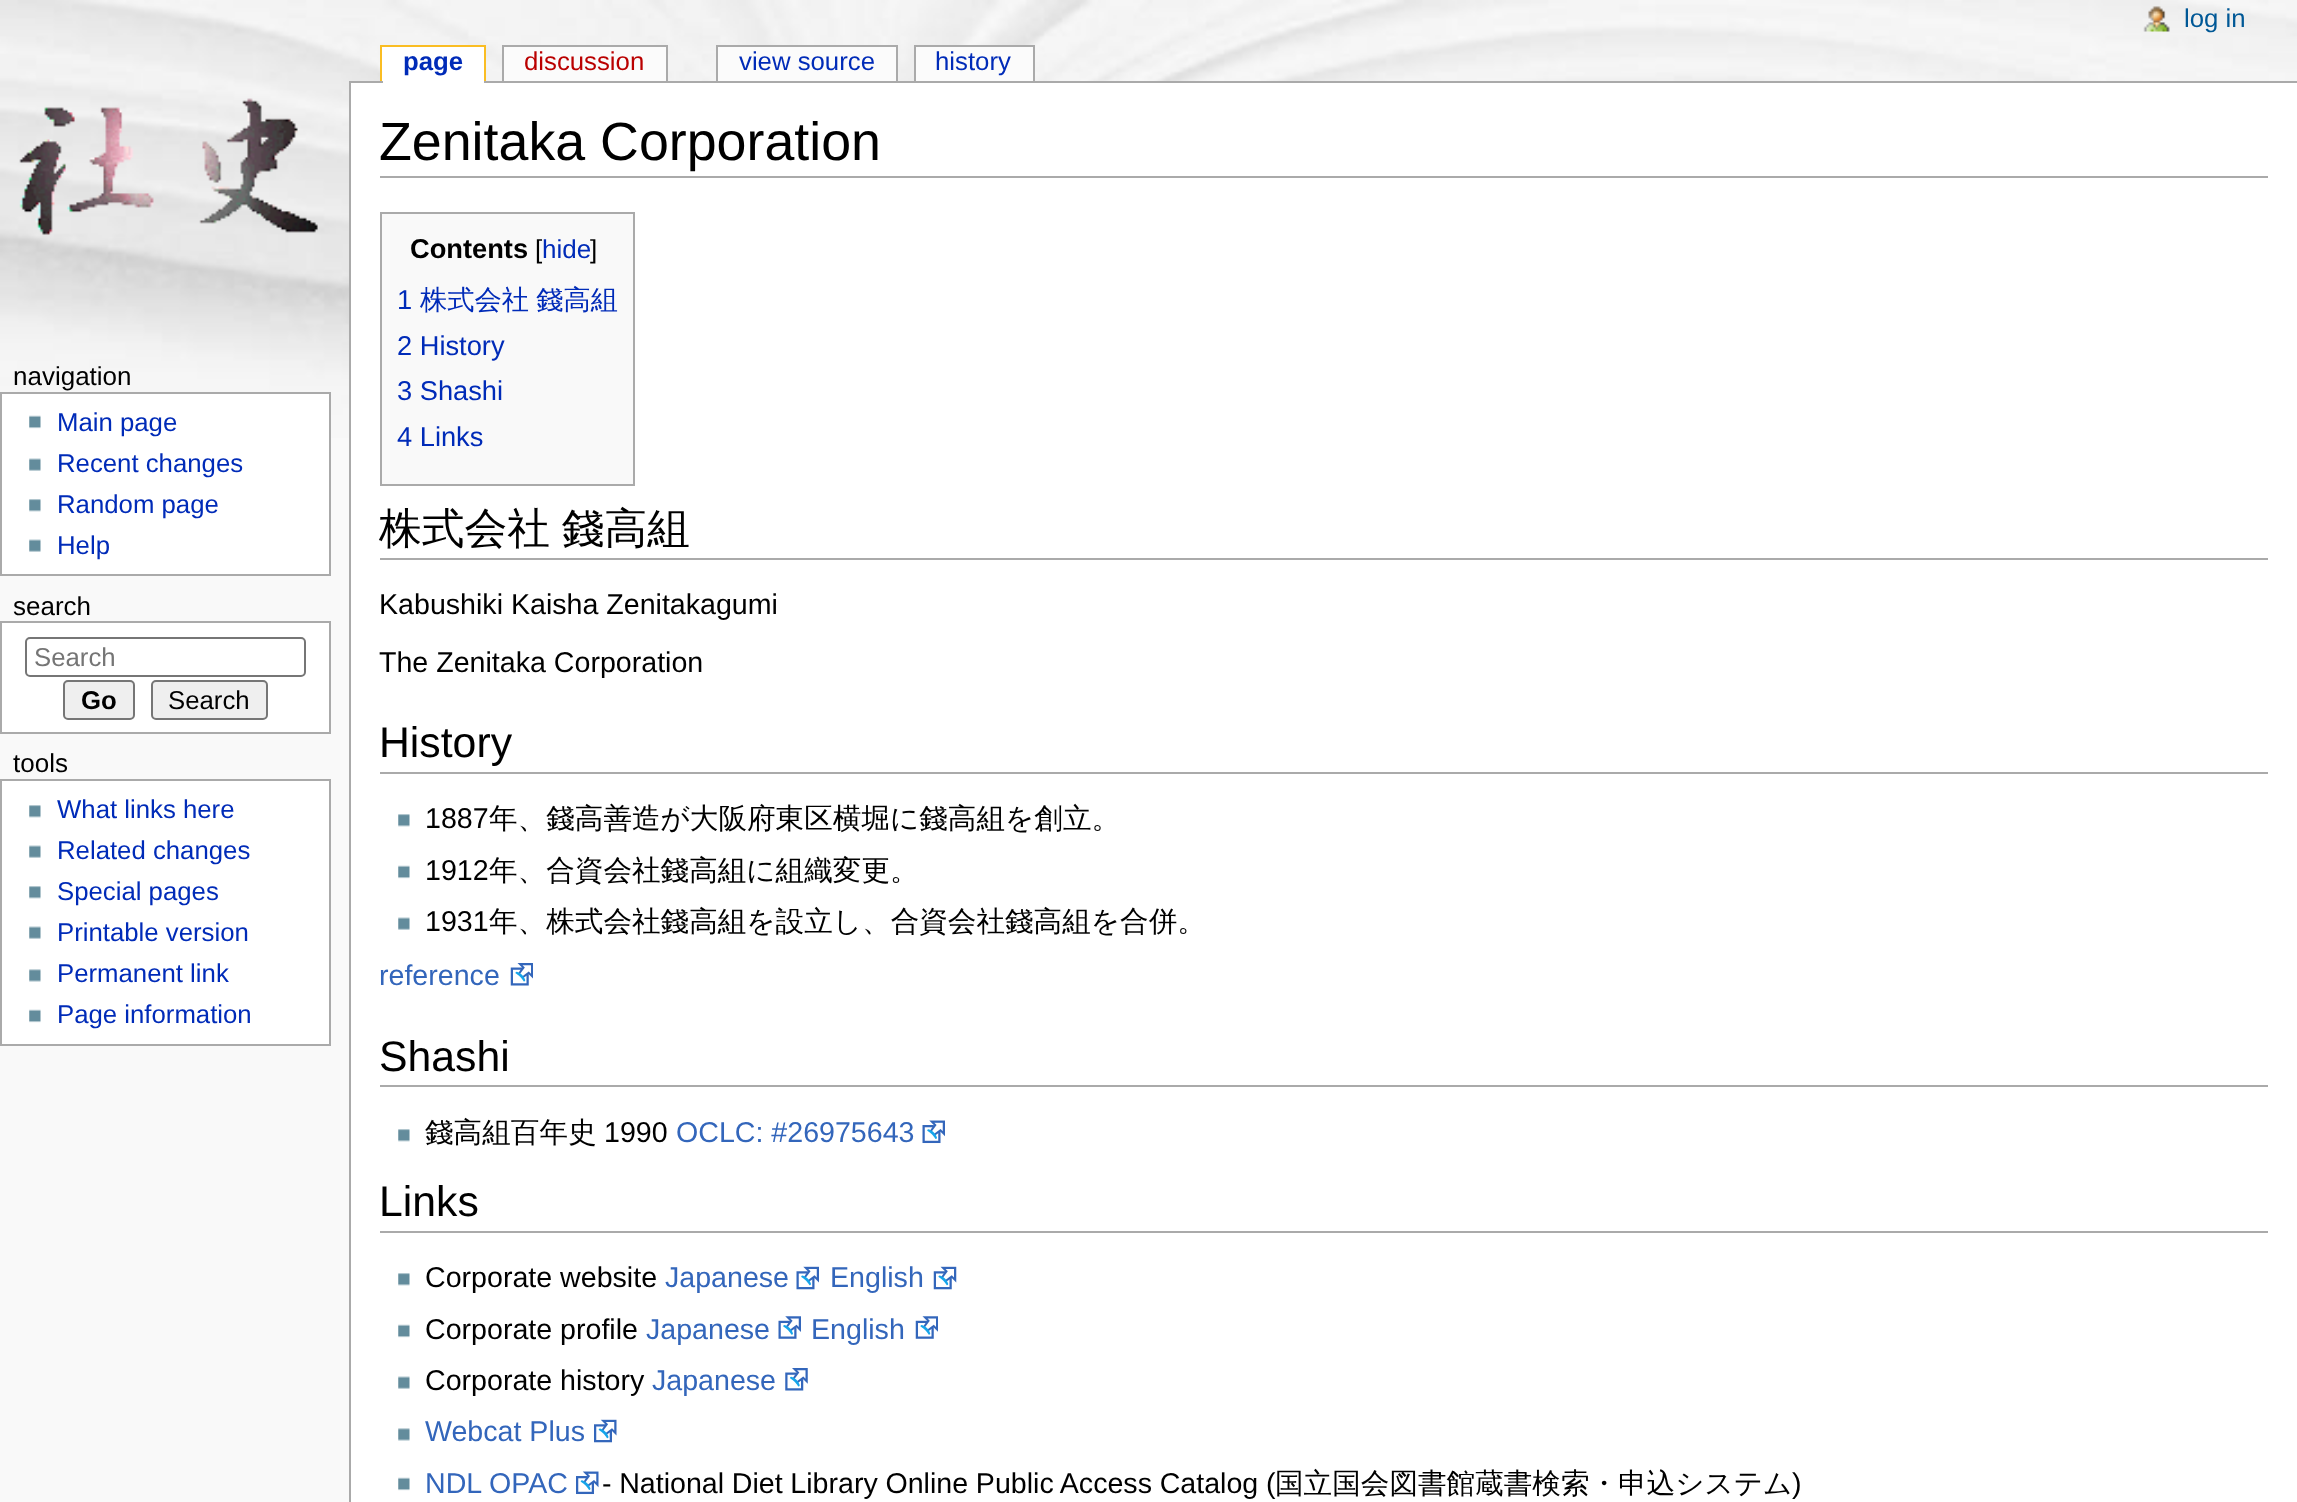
<svg xmlns="http://www.w3.org/2000/svg" width="2297" height="1502" viewBox="0 0 2297 1502">
  <rect width="100%" height="100%" fill="#f9f9f9"/>
  <image x="0" y="0" width="2297" height="438" href="img/1.png"/>
  <image x="2143" y="6" width="27" height="26" href="img/2.png"/>
  <path d="M382 47h1v34H382z" fill="#fff"/>
  <path d="M380 45h106v2H380z" fill="#fabd23"/>
  <path d="M484 45h2v36H484z" fill="#fabd23"/>
  <path d="M380 45h2v36H380z" fill="#fabd23"/>
  <path d="M349 81h1948v2H349z" fill="#aaa"/>
  <path d="M383 47h101v36H383z" fill="#fff"/>
  <path d="M502 45h166v2H502z" fill="#aaa"/>
  <path d="M666 45h2v36H666z" fill="#aaa"/>
  <path d="M502 45h2v36H502z" fill="#aaa"/>
  <path d="M504 47h162v34H504z" fill="#fbfbfb"/>
  <path d="M716 45h182v2H716z" fill="#aaa"/>
  <path d="M896 45h2v36H896z" fill="#aaa"/>
  <path d="M716 45h2v36H716z" fill="#aaa"/>
  <path d="M718 47h178v34H718z" fill="#fbfbfb"/>
  <path d="M914 45h121v2H914z" fill="#aaa"/>
  <path d="M1033 45h2v36H1033z" fill="#aaa"/>
  <path d="M914 45h2v36H914z" fill="#aaa"/>
  <path d="M916 47h117v34H916z" fill="#fbfbfb"/>
  <image x="19" y="98" width="299" height="137" href="img/3.png"/>
  <path d="M1 393h329v182H1z" fill="#fff" stroke="#aaa" stroke-width="2"/>
  <image x="29" y="415" width="12" height="14" href="img/4.png"/>
  <image x="29" y="458" width="12" height="13" href="img/5.png"/>
  <image x="29" y="499" width="12" height="13" href="img/6.png"/>
  <image x="29" y="539" width="12" height="13" href="img/5.png"/>
  <path d="M1 622h329v111H1z" fill="#fff" stroke="#aaa" stroke-width="2"/>
  <rect x="26" y="638" width="279" height="38" rx="4" fill="none" stroke="#767676" stroke-width="2"/>
  <rect x="64" y="681" width="70" height="38" rx="4" fill="#efefef" stroke="#767676" stroke-width="2"/>
  <rect x="152" y="681" width="115" height="38" rx="4" fill="#efefef" stroke="#767676" stroke-width="2"/>
  <path d="M1 780h329v265H1z" fill="#fff" stroke="#aaa" stroke-width="2"/>
  <image x="29" y="805" width="12" height="13" href="img/6.png"/>
  <image x="29" y="845" width="12" height="13" href="img/5.png"/>
  <image x="29" y="886" width="12" height="13" href="img/6.png"/>
  <image x="29" y="926" width="12" height="13" href="img/5.png"/>
  <image x="29" y="969" width="12" height="13" href="img/7.png"/>
  <image x="29" y="1009" width="12" height="14" href="img/4.png"/>
  <path d="M351 83h1946v1419H351z" fill="#fff"/>
  <path d="M349 81h2v1421H349z" fill="#aaa"/>
  <path d="M380 176h1888v2H380z" fill="#aaa"/>
  <path d="M381 213h253v272H381z" fill="#f9f9f9" stroke="#aaa" stroke-width="2"/>
  <path d="M380 558h1888v2H380z" fill="#aaa"/>
  <path d="M380 772h1888v2H380z" fill="#aaa"/>
  <image x="398" y="814" width="12" height="13" href="img/6.png"/>
  <image x="398" y="865" width="12" height="14" href="img/4.png"/>
  <image x="398" y="917" width="12" height="13" href="img/5.png"/>
  <image x="510" y="963" width="23" height="23" href="img/8.png"/>
  <path d="M380 1085h1888v2H380z" fill="#aaa"/>
  <image x="398" y="1129" width="12" height="13" href="img/6.png"/>
  <image x="922" y="1120" width="23" height="24" href="img/9.png"/>
  <path d="M380 1231h1888v2H380z" fill="#aaa"/>
  <image x="398" y="1273" width="12" height="13" href="img/6.png"/>
  <image x="796" y="1266" width="23" height="24" href="img/10.png"/>
  <image x="933" y="1266" width="24" height="24" href="img/11.png"/>
  <image x="398" y="1324" width="12" height="14" href="img/4.png"/>
  <image x="778" y="1316" width="23" height="23" href="img/12.png"/>
  <image x="915" y="1316" width="23" height="23" href="img/13.png"/>
  <image x="398" y="1376" width="12" height="13" href="img/5.png"/>
  <image x="785" y="1368" width="23" height="23" href="img/14.png"/>
  <image x="398" y="1428" width="12" height="13" href="img/7.png"/>
  <image x="594" y="1419" width="23" height="24" href="img/15.png"/>
  <image x="398" y="1477" width="12" height="14" href="img/4.png"/>
  <image x="576" y="1471" width="23" height="24" href="img/16.png"/>
  <text x="2184" y="27" font-family="Liberation Sans" font-size="25.75" fill="#005896">log in</text>
  <text x="403" y="70" font-family="Liberation Sans" font-size="25.75" font-weight="bold" fill="#002bb8">page</text>
  <text x="524" y="70" font-family="Liberation Sans" font-size="25.75" fill="#ba0000">discussion</text>
  <g font-family="Liberation Sans" font-size="25.75" fill="#002bb8">
    <text x="739" y="70">view source</text>
    <text x="935" y="70">history</text>
  </g>
  <text x="13" y="385" font-family="Liberation Sans" font-size="26" fill="#000">navigation</text>
  <g font-family="Liberation Sans" font-size="25.75" fill="#002bb8">
    <text x="57" y="431">Main page</text>
    <text x="57" y="472">Recent changes</text>
    <text x="57" y="513">Random page</text>
    <text x="57" y="554">Help</text>
  </g>
  <text x="13" y="615" font-family="Liberation Sans" font-size="26" fill="#000">search</text>
  <text x="34" y="666" font-family="Liberation Sans" font-size="25.75" fill="#757575">Search</text>
  <text x="81" y="709" font-family="Liberation Sans" font-size="25.75" font-weight="bold" fill="#000">Go</text>
  <text x="168" y="709" font-family="Liberation Sans" font-size="25.75" fill="#000">Search</text>
  <text x="13" y="772" font-family="Liberation Sans" font-size="26" fill="#000">tools</text>
  <g font-family="Liberation Sans" font-size="25.75" fill="#002bb8">
    <text x="57" y="818">What links here</text>
    <text x="57" y="859">Related changes</text>
    <text x="57" y="900">Special pages</text>
    <text x="57" y="941">Printable version</text>
    <text x="57" y="982">Permanent link</text>
    <text x="57" y="1023">Page information</text>
  </g>
  <text x="379" y="160" font-family="Liberation Sans" font-size="53.75" fill="#000">Zenitaka Corporation</text>
  <text x="410" y="258" font-family="Liberation Sans" font-size="27.25" font-weight="bold" fill="#000">Contents</text>
  <text x="535" y="258" font-family="Liberation Sans" font-size="26" fill="#000">[</text>
  <text x="542" y="258" font-family="Liberation Sans" font-size="26" fill="#002bb8">hide</text>
  <text x="590" y="258" font-family="Liberation Sans" font-size="26" fill="#000">]</text>
  <text x="397" y="309" font-family="Liberation Sans" font-size="27.25" fill="#002bb8">1</text>
  <text x="420" y="309" word-spacing="-1" font-family="WenQuanYi Zen Hei" font-size="27.25" font-weight="500" fill="#002bb8">株式会社 錢高組</text>
  <g font-family="Liberation Sans" font-size="27.25" fill="#002bb8">
    <text x="397" y="355">2 History</text>
    <text x="397" y="400">3 Shashi</text>
    <text x="397" y="446">4 Links</text>
  </g>
  <text x="379" y="543" word-spacing="-1" font-family="WenQuanYi Zen Hei" font-size="42.75" font-weight="500" fill="#000">株式会社 錢高組</text>
  <g font-family="Liberation Sans" font-size="28.6" fill="#000">
    <text x="379" y="614">Kabushiki Kaisha Zenitakagumi</text>
    <text x="379" y="672">The Zenitaka Corporation</text>
  </g>
  <text x="379" y="757" font-family="Liberation Sans" font-size="42.75" fill="#000">History</text>
  <text x="425" y="828" font-family="Liberation Sans" font-size="28.6" fill="#000">1887</text>
  <text x="489" y="828" font-family="WenQuanYi Zen Hei" font-size="28.6" font-weight="500" fill="#000">年、錢高善造が大阪府東区横堀に錢高組を創立。</text>
  <text x="425" y="880" font-family="Liberation Sans" font-size="28.6" fill="#000">1912</text>
  <text x="489" y="880" font-family="WenQuanYi Zen Hei" font-size="28.6" font-weight="500" fill="#000">年、合資会社錢高組に組織変更。</text>
  <text x="425" y="931" font-family="Liberation Sans" font-size="28.6" fill="#000">1931</text>
  <text x="489" y="931" font-family="WenQuanYi Zen Hei" font-size="28.6" font-weight="500" fill="#000">年、株式会社錢高組を設立し、合資会社錢高組を合併。</text>
  <text x="379" y="985" font-family="Liberation Sans" font-size="28.6" fill="#36b">reference</text>
  <text x="379" y="1071" font-family="Liberation Sans" font-size="42.75" fill="#000">Shashi</text>
  <text x="425" y="1142" font-family="WenQuanYi Zen Hei" font-size="28.6" font-weight="500" fill="#000">錢高組百年史</text>
  <text x="604" y="1142" font-family="Liberation Sans" font-size="28.6" fill="#000">1990</text>
  <text x="676" y="1142" font-family="Liberation Sans" font-size="28.6" fill="#36b">OCLC: #26975643</text>
  <text x="379" y="1216" font-family="Liberation Sans" font-size="42.75" fill="#000">Links</text>
  <text x="425" y="1287" font-family="Liberation Sans" font-size="28.6" fill="#000">Corporate website</text>
  <g font-family="Liberation Sans" font-size="28.6" fill="#36b">
    <text x="665" y="1287">Japanese</text>
    <text x="830" y="1287">English</text>
  </g>
  <text x="425" y="1339" font-family="Liberation Sans" font-size="28.6" fill="#000">Corporate profile</text>
  <g font-family="Liberation Sans" font-size="28.6" fill="#36b">
    <text x="646" y="1339">Japanese</text>
    <text x="811" y="1339">English</text>
  </g>
  <text x="425" y="1390" font-family="Liberation Sans" font-size="28.6" fill="#000">Corporate history</text>
  <g font-family="Liberation Sans" font-size="28.6" fill="#36b">
    <text x="652" y="1390">Japanese</text>
    <text x="425" y="1441">Webcat Plus</text>
    <text x="425" y="1493">NDL OPAC</text>
  </g>
  <text x="602" y="1493" word-spacing="-0.25" font-family="Liberation Sans" font-size="28.6" fill="#000">- National Diet Library Online Public Access Catalog (</text>
  <text x="1275" y="1493" font-family="WenQuanYi Zen Hei" font-size="28.6" font-weight="500" fill="#000">国立国会図書館蔵書検索・申込システム</text>
  <text x="1792" y="1493" font-family="Liberation Sans" font-size="28.6" fill="#000">)</text>
</svg>
